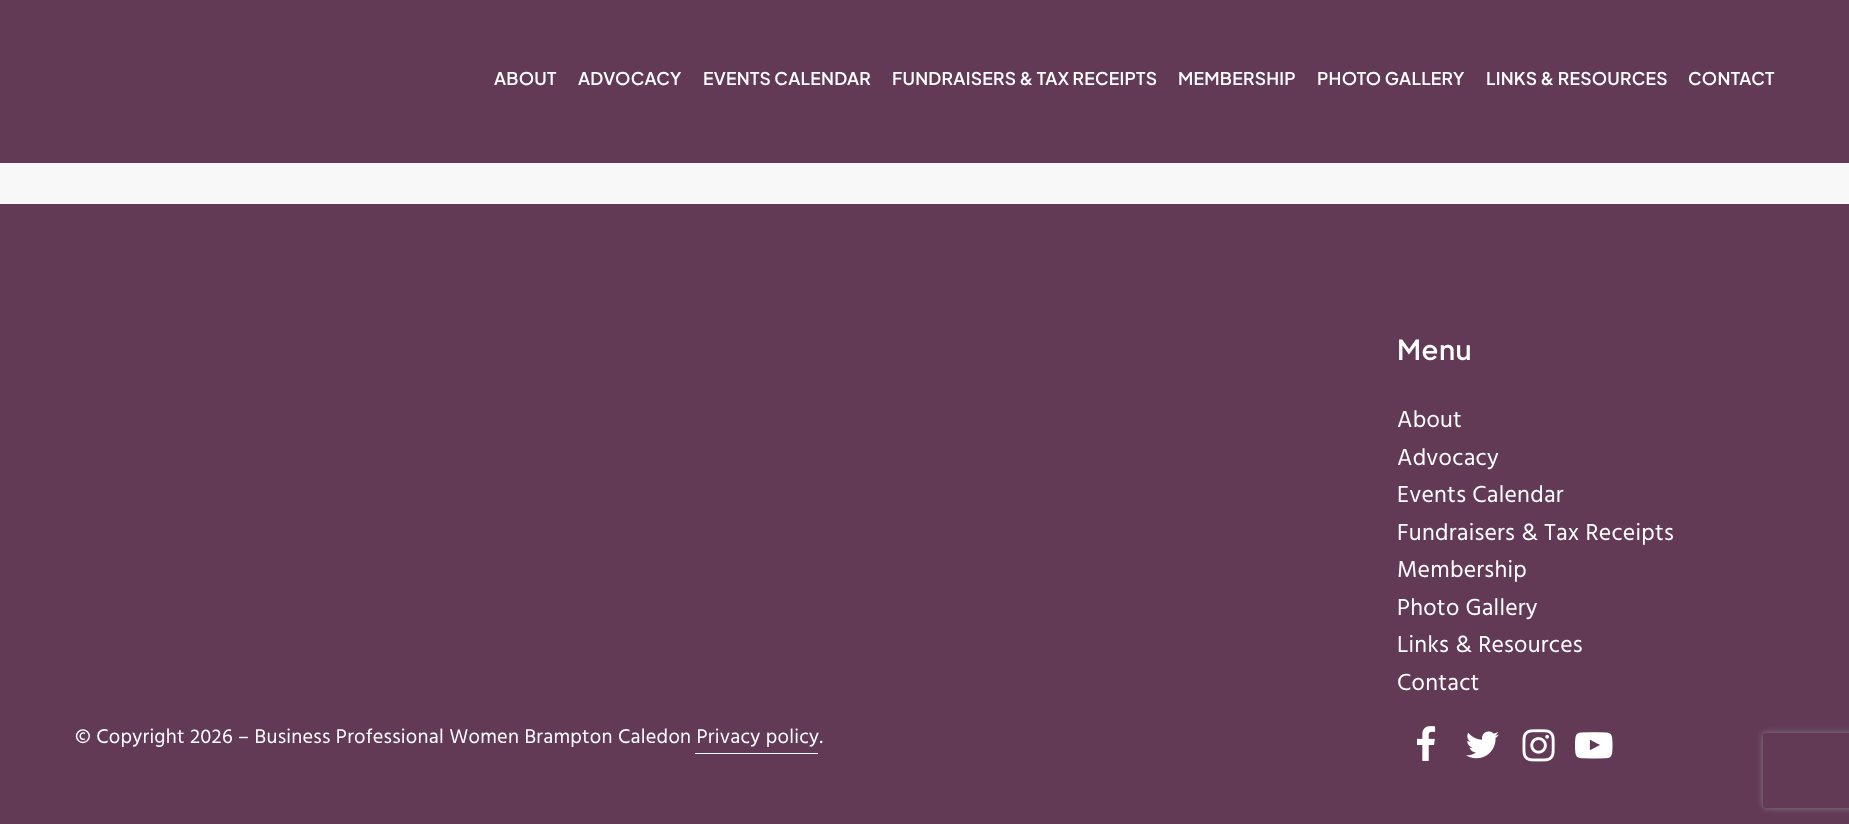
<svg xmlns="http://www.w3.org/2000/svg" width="1849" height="824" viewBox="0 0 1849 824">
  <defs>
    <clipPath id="clip1"><path d="M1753 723H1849V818H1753ZM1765.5 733H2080.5C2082 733 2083 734 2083 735.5V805.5C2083 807 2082 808 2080.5 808H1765.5C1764 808 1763 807 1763 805.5V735.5C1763 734 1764 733 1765.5 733Z" clip-rule="evenodd"/></clipPath>
  </defs>
  <rect width="100%" height="100%" fill="#f8f8f8"/>
  <path d="M0 0h1849v163H0z" fill="#623a56"/>
  <path d="M0 204h1849v620H0z" fill="#623a56"/>
  <path d="M695 753h123v1H695z" fill="#fff"/>
  <image x="1416" y="726" width="20" height="35" href="img/1.png"/>
  <image x="1466" y="731" width="33" height="28" href="img/2.png"/>
  <image x="1522" y="729" width="33" height="33" href="img/3.png"/>
  <image x="1575" y="732" width="38" height="27" href="img/4.png"/>
  <g clip-path="url(#clip1)">
    <rect x="1763" y="733" width="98" height="75" rx="2.5" fill="#808080" filter="blur(3px)"/>
  </g>
  <g font-family="Plus Jakarta Sans" font-size="17.5" font-weight="600" letter-spacing="0.25" fill="#fff">
    <text x="494" y="85">ABOUT</text>
    <text x="578" y="85">ADVOCACY</text>
    <text x="703" y="85">EVENTS CALENDAR</text>
    <text x="892" y="85">FUNDRAISERS &amp; TAX RECEIPTS</text>
    <text x="1178" y="85">MEMBERSHIP</text>
    <text x="1317" y="85">PHOTO GALLERY</text>
    <text x="1486" y="85">LINKS &amp; RESOURCES</text>
    <text x="1688" y="85">CONTACT</text>
  </g>
  <text x="1397" y="360" font-family="Plus Jakarta Sans" font-size="27.5" font-weight="600" letter-spacing="0.5" fill="#fff">Menu</text>
  <g font-family="Hind" font-size="23.75" letter-spacing="0.25" fill="#fff">
    <text x="1397" y="427">About</text>
    <text x="1397" y="465">Advocacy</text>
    <text x="1397" y="502">Events Calendar</text>
    <text x="1397" y="540">Fundraisers &amp; Tax Receipts</text>
    <text x="1397" y="577">Membership</text>
    <text x="1397" y="615">Photo Gallery</text>
    <text x="1397" y="652">Links &amp; Resources</text>
    <text x="1397" y="690">Contact</text>
  </g>
  <text x="75" y="743" font-family="Hind" font-size="20.35" letter-spacing="0.25" fill="#fff">© Copyright 2026 – Business Professional Women Brampton Caledon Privacy policy.</text>
</svg>
